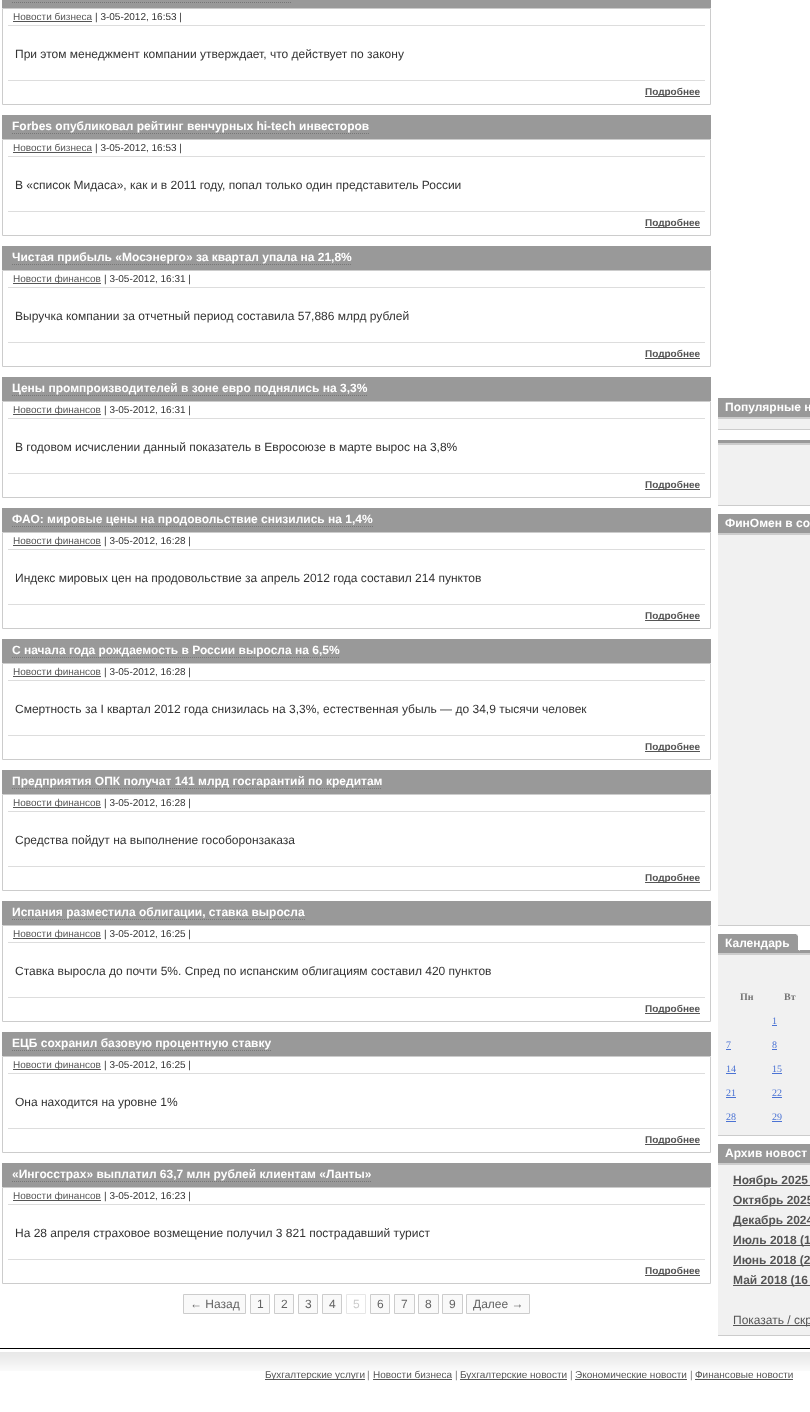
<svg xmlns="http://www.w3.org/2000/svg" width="810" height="1412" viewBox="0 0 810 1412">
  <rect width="100%" height="100%" fill="#fff"/>
  <path d="M2 0h709v8H2z" fill="#999"/>
  <path d="M12 2.5H291" fill="none" stroke="#777" stroke-dasharray="1 1"/>
  <path d="M2.5 8.5h708v96H2.5z" fill="none" stroke="#ccc"/>
  <path d="M8 25h697v1H8z" fill="#ddd"/>
  <path d="M13 21h79v1H13z" fill="#555"/>
  <path d="M8 80h697v1H8z" fill="#ddd"/>
  <path d="M645 96h55v1H645z" fill="#555"/>
  <path d="M2 115h709v24H2z" fill="#999"/>
  <path d="M12 133.5H369" fill="none" stroke="#777" stroke-dasharray="1 1"/>
  <path d="M2.5 139.5h708v96H2.5z" fill="none" stroke="#ccc"/>
  <path d="M8 156h697v1H8z" fill="#ddd"/>
  <path d="M13 152h79v1H13z" fill="#555"/>
  <path d="M8 211h697v1H8z" fill="#ddd"/>
  <path d="M645 227h55v1H645z" fill="#555"/>
  <path d="M2 246h709v24H2z" fill="#999"/>
  <path d="M12 264.5H352" fill="none" stroke="#777" stroke-dasharray="1 1"/>
  <path d="M2.5 270.5h708v96H2.5z" fill="none" stroke="#ccc"/>
  <path d="M8 287h697v1H8z" fill="#ddd"/>
  <path d="M13 283h88v1H13z" fill="#555"/>
  <path d="M8 342h697v1H8z" fill="#ddd"/>
  <path d="M645 358h55v1H645z" fill="#555"/>
  <path d="M2 377h709v24H2z" fill="#999"/>
  <path d="M12 395.5H367" fill="none" stroke="#777" stroke-dasharray="1 1"/>
  <path d="M2.5 401.5h708v96H2.5z" fill="none" stroke="#ccc"/>
  <path d="M8 418h697v1H8z" fill="#ddd"/>
  <path d="M13 414h88v1H13z" fill="#555"/>
  <path d="M8 473h697v1H8z" fill="#ddd"/>
  <path d="M645 489h55v1H645z" fill="#555"/>
  <path d="M2 508h709v24H2z" fill="#999"/>
  <path d="M12 526.5H373" fill="none" stroke="#777" stroke-dasharray="1 1"/>
  <path d="M2.5 532.5h708v96H2.5z" fill="none" stroke="#ccc"/>
  <path d="M8 549h697v1H8z" fill="#ddd"/>
  <path d="M13 545h88v1H13z" fill="#555"/>
  <path d="M8 604h697v1H8z" fill="#ddd"/>
  <path d="M645 620h55v1H645z" fill="#555"/>
  <path d="M2 639h709v24H2z" fill="#999"/>
  <path d="M12 657.5H340" fill="none" stroke="#777" stroke-dasharray="1 1"/>
  <path d="M2.5 663.5h708v96H2.5z" fill="none" stroke="#ccc"/>
  <path d="M8 680h697v1H8z" fill="#ddd"/>
  <path d="M13 676h88v1H13z" fill="#555"/>
  <path d="M8 735h697v1H8z" fill="#ddd"/>
  <path d="M645 751h55v1H645z" fill="#555"/>
  <path d="M2 770h709v24H2z" fill="#999"/>
  <path d="M12 788.5H382" fill="none" stroke="#777" stroke-dasharray="1 1"/>
  <path d="M2.5 794.5h708v96H2.5z" fill="none" stroke="#ccc"/>
  <path d="M8 811h697v1H8z" fill="#ddd"/>
  <path d="M13 807h88v1H13z" fill="#555"/>
  <path d="M8 866h697v1H8z" fill="#ddd"/>
  <path d="M645 882h55v1H645z" fill="#555"/>
  <path d="M2 901h709v24H2z" fill="#999"/>
  <path d="M12 919.5H305" fill="none" stroke="#777" stroke-dasharray="1 1"/>
  <path d="M2.5 925.5h708v96H2.5z" fill="none" stroke="#ccc"/>
  <path d="M8 942h697v1H8z" fill="#ddd"/>
  <path d="M13 938h88v1H13z" fill="#555"/>
  <path d="M8 997h697v1H8z" fill="#ddd"/>
  <path d="M645 1013h55v1H645z" fill="#555"/>
  <path d="M2 1032h709v24H2z" fill="#999"/>
  <path d="M12 1050.5H271" fill="none" stroke="#777" stroke-dasharray="1 1"/>
  <path d="M2.5 1056.5h708v96H2.5z" fill="none" stroke="#ccc"/>
  <path d="M8 1073h697v1H8z" fill="#ddd"/>
  <path d="M13 1069h88v1H13z" fill="#555"/>
  <path d="M8 1128h697v1H8z" fill="#ddd"/>
  <path d="M645 1144h55v1H645z" fill="#555"/>
  <path d="M2 1163h709v24H2z" fill="#999"/>
  <path d="M12 1181.5H371" fill="none" stroke="#777" stroke-dasharray="1 1"/>
  <path d="M2.5 1187.5h708v96H2.5z" fill="none" stroke="#ccc"/>
  <path d="M8 1204h697v1H8z" fill="#ddd"/>
  <path d="M13 1200h88v1H13z" fill="#555"/>
  <path d="M8 1259h697v1H8z" fill="#ddd"/>
  <path d="M645 1275h55v1H645z" fill="#555"/>
  <path d="M183.5 1294.5h62v19H183.5z" fill="#f9f9f9" stroke="#ccc"/>
  <path d="M250.5 1294.5h19v19H250.5z" fill="#f9f9f9" stroke="#ccc"/>
  <path d="M274.5 1294.5h19v19H274.5z" fill="#f9f9f9" stroke="#ccc"/>
  <path d="M298.5 1294.5h19v19H298.5z" fill="#f9f9f9" stroke="#ccc"/>
  <path d="M322.5 1294.5h19v19H322.5z" fill="#f9f9f9" stroke="#ccc"/>
  <path d="M346.5 1294.5h19v19H346.5z" fill="none" stroke="#e6e6e6"/>
  <path d="M370.5 1294.5h19v19H370.5z" fill="#f9f9f9" stroke="#ccc"/>
  <path d="M394.5 1294.5h20v19H394.5z" fill="#f9f9f9" stroke="#ccc"/>
  <path d="M418.5 1294.5h20v19H418.5z" fill="#f9f9f9" stroke="#ccc"/>
  <path d="M442.5 1294.5h20v19H442.5z" fill="#f9f9f9" stroke="#ccc"/>
  <path d="M466.5 1294.5h63v19H466.5z" fill="#f9f9f9" stroke="#ccc"/>
  <path d="M718 398h92v19H718z" fill="#999"/>
  <path d="M718 419h92v10H718z" fill="#f1f1f1"/>
  <path d="M718 417h92v2H718z" fill="#ccc"/>
  <path d="M718 429h92v1H718z" fill="#ccc"/>
  <path d="M718 440h92v3H718z" fill="#999"/>
  <path d="M718 445h92v60H718z" fill="#f1f1f1"/>
  <path d="M718 443h92v2H718z" fill="#ccc"/>
  <path d="M718 505h92v1H718z" fill="#ccc"/>
  <path d="M718 514h92v19H718z" fill="#999"/>
  <path d="M718 535h92v390H718z" fill="#f1f1f1"/>
  <path d="M718 533h92v2H718z" fill="#ccc"/>
  <path d="M718 925h92v1H718z" fill="#ccc"/>
  <path d="M718 950h92v3H718z" fill="#999"/>
  <path d="M718 934h78v16H718z" fill="#999"/>
  <image x="796" y="934" width="4" height="17" href="img/1.png"/>
  <path d="M718 955h92v180H718z" fill="#f1f1f1"/>
  <path d="M718 953h92v2H718z" fill="#ccc"/>
  <path d="M718 1135h92v1H718z" fill="#ccc"/>
  <path d="M772 1025h5v1H772z" fill="#4b73d4"/>
  <path d="M726 1049h5v1H726z" fill="#4b73d4"/>
  <path d="M772 1049h5v1H772z" fill="#4b73d4"/>
  <path d="M726 1073h10v1H726z" fill="#4b73d4"/>
  <path d="M772 1073h10v1H772z" fill="#4b73d4"/>
  <path d="M726 1097h10v1H726z" fill="#4b73d4"/>
  <path d="M772 1097h10v1H772z" fill="#4b73d4"/>
  <path d="M726 1121h10v1H726z" fill="#4b73d4"/>
  <path d="M772 1121h10v1H772z" fill="#4b73d4"/>
  <path d="M718 1144h92v19H718z" fill="#999"/>
  <path d="M718 1165h92v170H718z" fill="#f1f1f1"/>
  <path d="M718 1163h92v2H718z" fill="#ccc"/>
  <path d="M718 1335h92v1H718z" fill="#ccc"/>
  <path d="M733 1185h77v1H733z" fill="#555"/>
  <path d="M733 1205h77v1H733z" fill="#555"/>
  <path d="M733 1225h77v1H733z" fill="#555"/>
  <path d="M733 1245h77v1H733z" fill="#555"/>
  <path d="M733 1265h77v1H733z" fill="#555"/>
  <path d="M733 1285h77v1H733z" fill="#555"/>
  <path d="M733 1325h77v1H733z" fill="#555"/>
  <image x="0" y="1352" width="810" height="19" href="img/2.png"/>
  <path d="M0 1348h810v1H0z" fill="#000"/>
  <path d="M265 1379h100v1H265z" fill="#555"/>
  <path d="M373 1379h79v1H373z" fill="#555"/>
  <path d="M460 1379h107v1H460z" fill="#555"/>
  <path d="M575 1379h112v1H575z" fill="#555"/>
  <path d="M695 1379h98v1H695z" fill="#555"/>
  <text x="13" y="20" font-family="Liberation Sans" font-size="10" fill="#555">Новости бизнеса</text>
  <text x="95" y="20" font-family="Liberation Sans" font-size="10" fill="#333">| 3-05-2012, 16:53 |</text>
  <text x="15" y="58" font-family="Liberation Sans" font-size="12" fill="#333">При этом менеджмент компании утверждает, что действует по закону</text>
  <text x="645" y="95" font-family="Liberation Sans" font-size="10" font-weight="bold" fill="#555">Подробнее</text>
  <text x="12" y="130" font-family="Liberation Sans" font-size="12" font-weight="bold" fill="#fff">Forbes опубликовал рейтинг венчурных hi-tech инвесторов</text>
  <text x="13" y="151" font-family="Liberation Sans" font-size="10" fill="#555">Новости бизнеса</text>
  <text x="95" y="151" font-family="Liberation Sans" font-size="10" fill="#333">| 3-05-2012, 16:53 |</text>
  <text x="15" y="189" font-family="Liberation Sans" font-size="12" fill="#333">В «список Мидаса», как и в 2011 году, попал только один представитель России</text>
  <text x="645" y="226" font-family="Liberation Sans" font-size="10" font-weight="bold" fill="#555">Подробнее</text>
  <text x="12" y="261" font-family="Liberation Sans" font-size="12" font-weight="bold" fill="#fff">Чистая прибыль «Мосэнерго» за квартал упала на 21,8%</text>
  <text x="13" y="282" font-family="Liberation Sans" font-size="10" fill="#555">Новости финансов</text>
  <text x="104" y="282" font-family="Liberation Sans" font-size="10" fill="#333">| 3-05-2012, 16:31 |</text>
  <text x="15" y="320" font-family="Liberation Sans" font-size="12" fill="#333">Выручка компании за отчетный период составила 57,886 млрд рублей</text>
  <text x="645" y="357" font-family="Liberation Sans" font-size="10" font-weight="bold" fill="#555">Подробнее</text>
  <text x="12" y="392" font-family="Liberation Sans" font-size="12" font-weight="bold" fill="#fff">Цены промпроизводителей в зоне евро поднялись на 3,3%</text>
  <text x="13" y="413" font-family="Liberation Sans" font-size="10" fill="#555">Новости финансов</text>
  <text x="104" y="413" font-family="Liberation Sans" font-size="10" fill="#333">| 3-05-2012, 16:31 |</text>
  <text x="15" y="451" font-family="Liberation Sans" font-size="12" fill="#333">В годовом исчислении данный показатель в Евросоюзе в марте вырос на 3,8%</text>
  <text x="645" y="488" font-family="Liberation Sans" font-size="10" font-weight="bold" fill="#555">Подробнее</text>
  <text x="12" y="523" font-family="Liberation Sans" font-size="12" font-weight="bold" fill="#fff">ФАО: мировые цены на продовольствие снизились на 1,4%</text>
  <text x="13" y="544" font-family="Liberation Sans" font-size="10" fill="#555">Новости финансов</text>
  <text x="104" y="544" font-family="Liberation Sans" font-size="10" fill="#333">| 3-05-2012, 16:28 |</text>
  <text x="15" y="582" font-family="Liberation Sans" font-size="12" fill="#333">Индекс мировых цен на продовольствие за апрель 2012 года составил 214 пунктов</text>
  <text x="645" y="619" font-family="Liberation Sans" font-size="10" font-weight="bold" fill="#555">Подробнее</text>
  <text x="12" y="654" font-family="Liberation Sans" font-size="12" font-weight="bold" fill="#fff">С начала года рождаемость в России выросла на 6,5%</text>
  <text x="13" y="675" font-family="Liberation Sans" font-size="10" fill="#555">Новости финансов</text>
  <text x="104" y="675" font-family="Liberation Sans" font-size="10" fill="#333">| 3-05-2012, 16:28 |</text>
  <text x="15" y="713" font-family="Liberation Sans" font-size="12" fill="#333">Смертность за I квартал 2012 года снизилась на 3,3%, естественная убыль — до 34,9 тысячи человек</text>
  <text x="645" y="750" font-family="Liberation Sans" font-size="10" font-weight="bold" fill="#555">Подробнее</text>
  <text x="12" y="785" font-family="Liberation Sans" font-size="12" font-weight="bold" fill="#fff">Предприятия ОПК получат 141 млрд госгарантий по кредитам</text>
  <text x="13" y="806" font-family="Liberation Sans" font-size="10" fill="#555">Новости финансов</text>
  <text x="104" y="806" font-family="Liberation Sans" font-size="10" fill="#333">| 3-05-2012, 16:28 |</text>
  <text x="15" y="844" font-family="Liberation Sans" font-size="12" fill="#333">Средства пойдут на выполнение гособоронзаказа</text>
  <text x="645" y="881" font-family="Liberation Sans" font-size="10" font-weight="bold" fill="#555">Подробнее</text>
  <text x="12" y="916" font-family="Liberation Sans" font-size="12" font-weight="bold" fill="#fff">Испания разместила облигации, ставка выросла</text>
  <text x="13" y="937" font-family="Liberation Sans" font-size="10" fill="#555">Новости финансов</text>
  <text x="104" y="937" font-family="Liberation Sans" font-size="10" fill="#333">| 3-05-2012, 16:25 |</text>
  <text x="15" y="975" font-family="Liberation Sans" font-size="12" fill="#333">Ставка выросла до почти 5%. Спред по испанским облигациям составил 420 пунктов</text>
  <text x="645" y="1012" font-family="Liberation Sans" font-size="10" font-weight="bold" fill="#555">Подробнее</text>
  <text x="12" y="1047" font-family="Liberation Sans" font-size="12" font-weight="bold" fill="#fff">ЕЦБ сохранил базовую процентную ставку</text>
  <text x="13" y="1068" font-family="Liberation Sans" font-size="10" fill="#555">Новости финансов</text>
  <text x="104" y="1068" font-family="Liberation Sans" font-size="10" fill="#333">| 3-05-2012, 16:25 |</text>
  <text x="15" y="1106" font-family="Liberation Sans" font-size="12" fill="#333">Она находится на уровне 1%</text>
  <text x="645" y="1143" font-family="Liberation Sans" font-size="10" font-weight="bold" fill="#555">Подробнее</text>
  <text x="12" y="1178" font-family="Liberation Sans" font-size="12" font-weight="bold" fill="#fff">«Ингосстрах» выплатил 63,7 млн рублей клиентам «Ланты»</text>
  <text x="13" y="1199" font-family="Liberation Sans" font-size="10" fill="#555">Новости финансов</text>
  <text x="104" y="1199" font-family="Liberation Sans" font-size="10" fill="#333">| 3-05-2012, 16:23 |</text>
  <text x="15" y="1237" font-family="Liberation Sans" font-size="12" fill="#333">На 28 апреля страховое возмещение получил 3 821 пострадавший турист</text>
  <text x="645" y="1274" font-family="Liberation Sans" font-size="10" font-weight="bold" fill="#555">Подробнее</text>
  <g font-family="Liberation Sans" font-size="12" fill="#636363">
    <text x="190" y="1308">← Назад</text>
    <text x="257" y="1308">1</text>
    <text x="281" y="1308">2</text>
    <text x="305" y="1308">3</text>
    <text x="329" y="1308">4</text>
  </g>
  <text x="353" y="1308" font-family="Liberation Sans" font-size="12" fill="#ccc">5</text>
  <g font-family="Liberation Sans" font-size="12" fill="#636363">
    <text x="377" y="1308">6</text>
    <text x="401" y="1308">7</text>
    <text x="425" y="1308">8</text>
    <text x="449" y="1308">9</text>
    <text x="473" y="1308">Далее →</text>
  </g>
  <g font-family="Liberation Sans" font-size="12" font-weight="bold" fill="#fff">
    <text x="725" y="411">Популярные н</text>
    <text x="725" y="527">ФинОмен в со</text>
    <text x="725" y="947">Календарь</text>
  </g>
  <g font-family="Liberation Serif" font-size="10" font-weight="bold" fill="#757575">
    <text x="740" y="1000">Пн</text>
    <text x="784" y="1000">Вт</text>
  </g>
  <g font-family="Liberation Serif" font-size="10" fill="#4b73d4">
    <text x="772" y="1024">1</text>
    <text x="726" y="1048">7</text>
    <text x="772" y="1048">8</text>
    <text x="726" y="1072">14</text>
    <text x="772" y="1072">15</text>
    <text x="726" y="1096">21</text>
    <text x="772" y="1096">22</text>
    <text x="726" y="1120">28</text>
    <text x="772" y="1120">29</text>
  </g>
  <text x="725" y="1157" font-family="Liberation Sans" font-size="12" font-weight="bold" fill="#fff">Архив новост</text>
  <g font-family="Liberation Sans" font-size="12" font-weight="bold" fill="#555">
    <text x="733" y="1184">Ноябрь 2025</text>
    <text x="733" y="1204">Октябрь 2025</text>
    <text x="733" y="1224">Декабрь 2024</text>
    <text x="733" y="1244">Июль 2018 (1</text>
    <text x="733" y="1264">Июнь 2018 (2</text>
    <text x="733" y="1284">Май 2018 (16</text>
  </g>
  <text x="733" y="1324" font-family="Liberation Sans" font-size="12" fill="#555">Показать / скр</text>
  <text x="265" y="1378" font-family="Liberation Sans" font-size="10" fill="#555">Бухгалтерские услуги</text>
  <text x="367" y="1378" font-family="Liberation Sans" font-size="10" fill="#757575">|</text>
  <text x="373" y="1378" font-family="Liberation Sans" font-size="10" fill="#555">Новости бизнеса</text>
  <text x="455" y="1378" font-family="Liberation Sans" font-size="10" fill="#757575">|</text>
  <text x="460" y="1378" font-family="Liberation Sans" font-size="10" fill="#555">Бухгалтерские новости</text>
  <text x="570" y="1378" font-family="Liberation Sans" font-size="10" fill="#757575">|</text>
  <text x="575" y="1378" font-family="Liberation Sans" font-size="10" fill="#555">Экономические новости</text>
  <text x="690" y="1378" font-family="Liberation Sans" font-size="10" fill="#757575">|</text>
  <text x="695" y="1378" font-family="Liberation Sans" font-size="10" fill="#555">Финансовые новости</text>
</svg>
